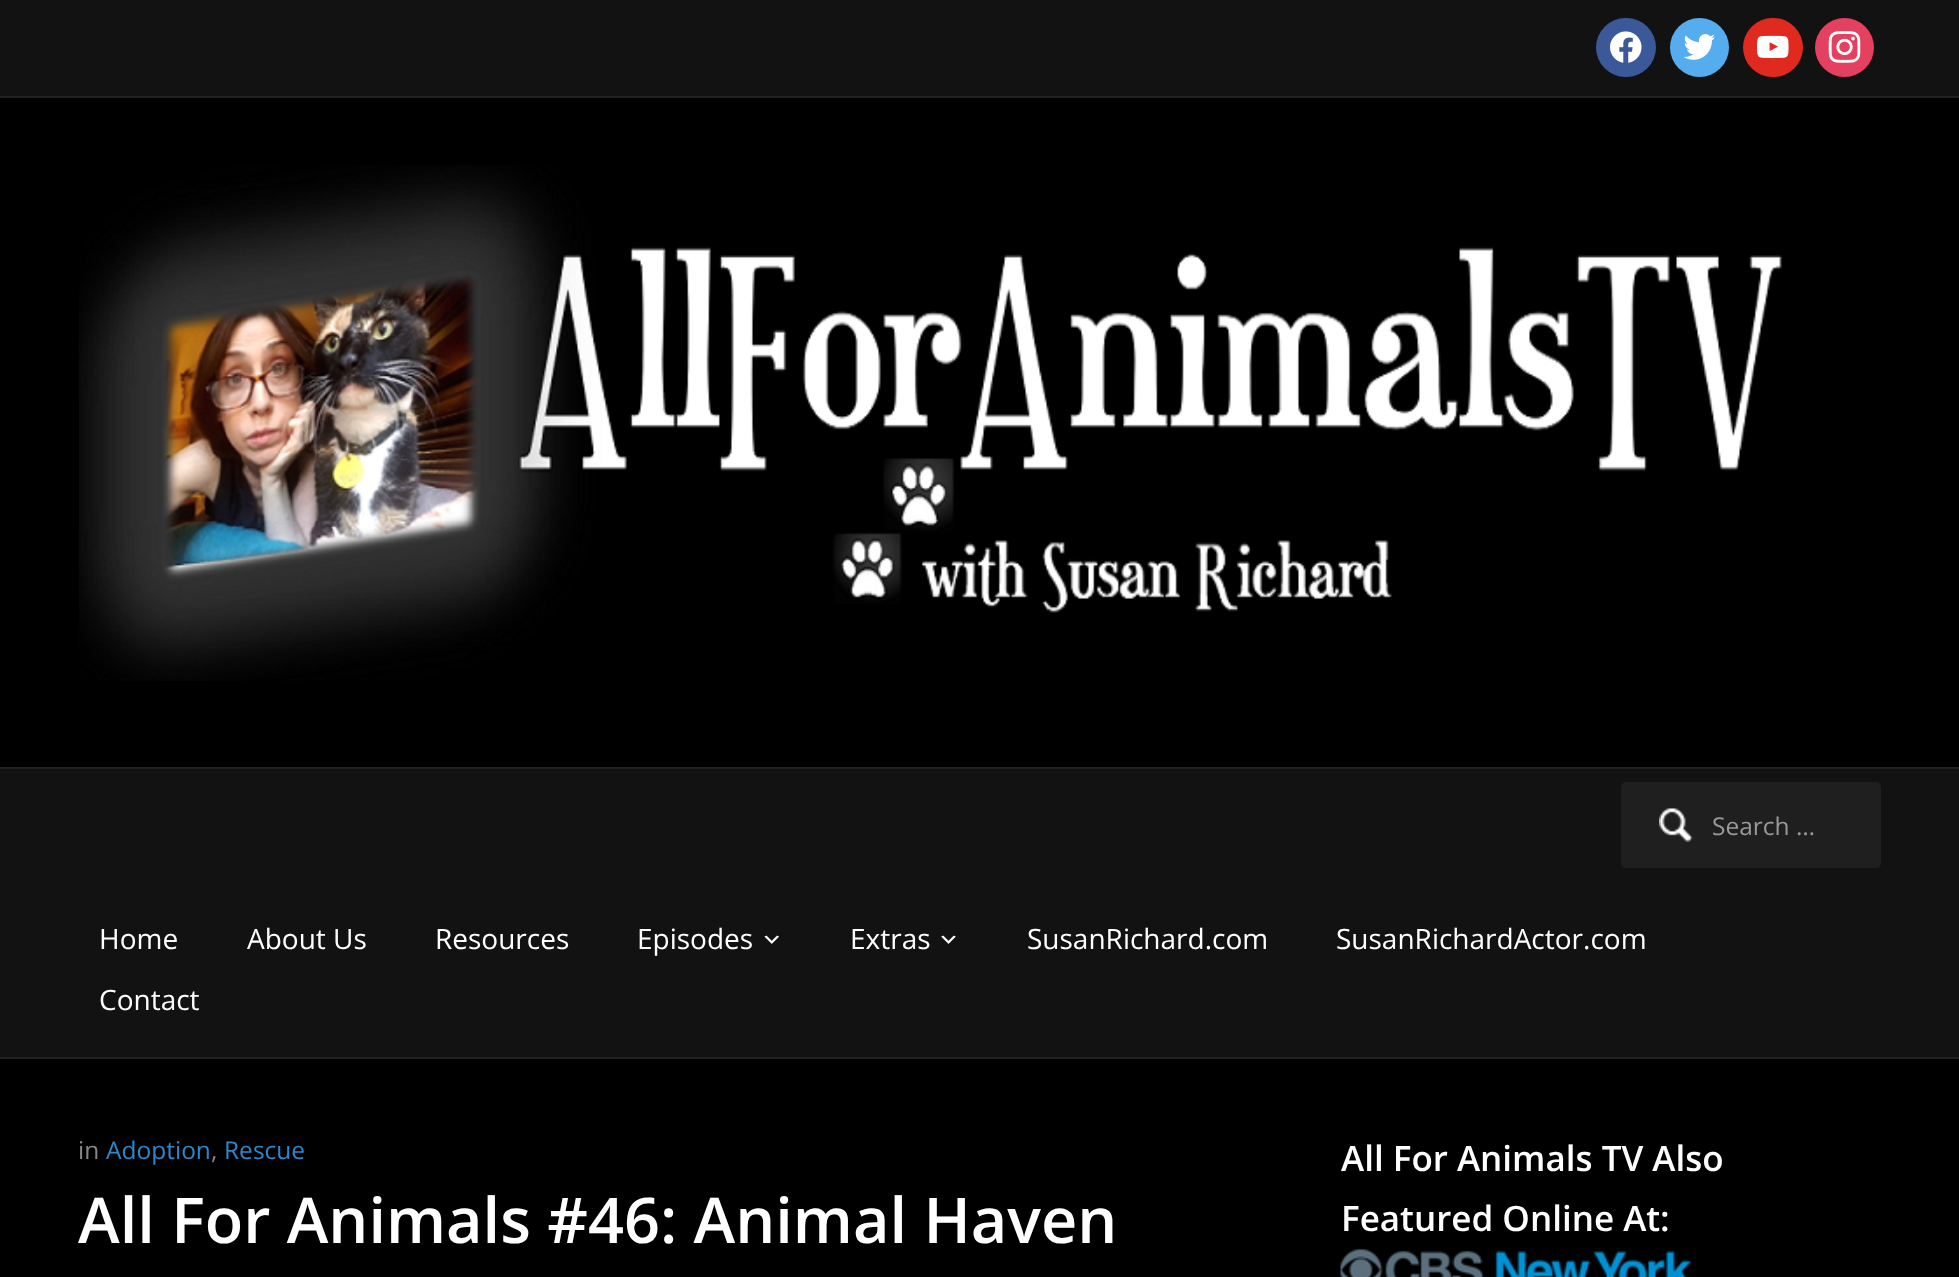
<svg xmlns="http://www.w3.org/2000/svg" width="1959" height="1277" viewBox="0 0 1959 1277">
  <rect width="100%" height="100%" fill="#000"/>
  <path d="M0 0h1959v96H0z" fill="#121212"/>
  <path d="M0 96h1959v2H0z" fill="#222"/>
  <rect x="1596" y="18" width="60" height="59" rx="29.5" fill="#3b5998"/>
  <image x="1610" y="31" width="32" height="32" href="img/1.png"/>
  <circle cx="1699.5" cy="47.5" r="29.5" fill="#55acee"/>
  <image x="1683" y="34" width="32" height="26" href="img/2.png"/>
  <rect x="1743" y="18" width="60" height="59" rx="29.5" fill="#e02a20"/>
  <image x="1757" y="35" width="32" height="24" href="img/3.png"/>
  <circle cx="1844.5" cy="47.5" r="29.5" fill="#e4405f"/>
  <image x="1828" y="31" width="33" height="32" href="img/4.png"/>
  <image x="79" y="165" width="1703" height="516" href="img/5.png"/>
  <path d="M0 769h1959v288H0z" fill="#121212"/>
  <path d="M0 767h1959v2H0z" fill="#222"/>
  <path d="M0 1057h1959v2H0z" fill="#222"/>
  <rect x="1621" y="782" width="260" height="86" rx="5" fill="#1f1f1f"/>
  <image x="1659" y="808" width="34" height="34" href="img/6.png"/>
  <image x="764" y="935" width="15" height="9" href="img/7.png"/>
  <image x="941" y="935" width="15" height="9" href="img/8.png"/>
  <image x="1340" y="1248" width="352" height="29" href="img/9.png"/>
  <text x="1712" y="835" font-family="Open Sans" font-size="24.5" fill="#999">Search …</text>
  <g font-family="Open Sans" font-size="28" fill="#fff">
    <text x="99" y="949">Home</text>
    <text x="247" y="949">About Us</text>
    <text x="435" y="949">Resources</text>
    <text x="637" y="949">Episodes</text>
    <text x="850" y="949">Extras</text>
    <text x="1027" y="949">SusanRichard.com</text>
    <text x="1336" y="949">SusanRichardActor.com</text>
    <text x="99" y="1010">Contact</text>
  </g>
  <text x="78" y="1159" font-family="Open Sans" font-size="24.5" fill="#888">in</text>
  <text x="106" y="1159" font-family="Open Sans" font-size="24.5" fill="#2d87cc">Adoption</text>
  <text x="211" y="1159" font-family="Open Sans" font-size="24.5" fill="#888">,</text>
  <text x="224" y="1159" font-family="Open Sans" font-size="24.5" fill="#2d87cc">Rescue</text>
  <text x="78" y="1243" font-family="Open Sans" font-size="63" font-weight="600" fill="#fff">All For Animals #46: Animal Haven</text>
  <g font-family="Open Sans" font-size="35" font-weight="600" fill="#fff">
    <text x="1341" y="1171">All For Animals TV Also</text>
    <text x="1341" y="1231">Featured Online At:</text>
  </g>
</svg>
